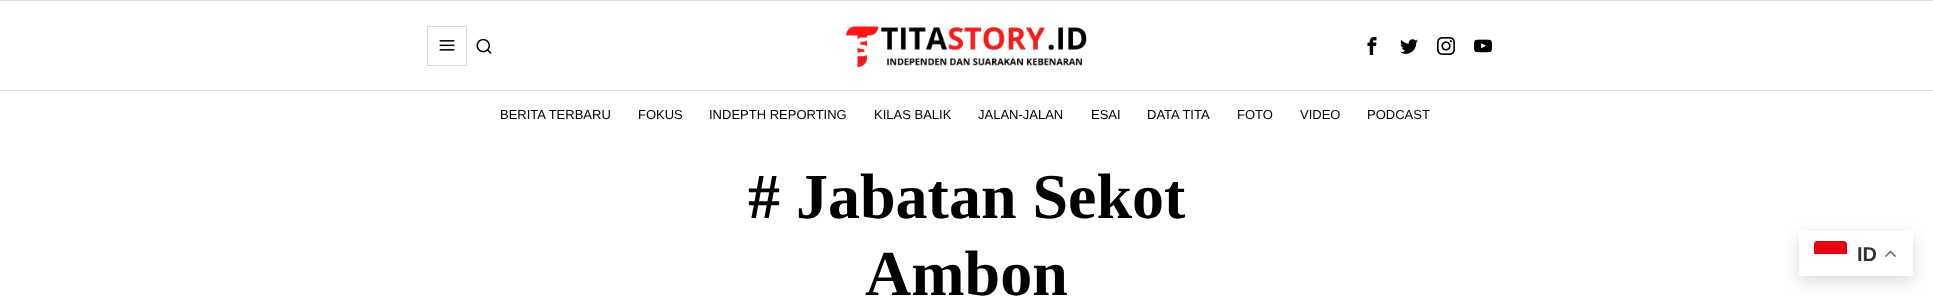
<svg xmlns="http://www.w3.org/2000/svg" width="1933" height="303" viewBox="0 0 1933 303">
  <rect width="100%" height="100%" fill="#fff"/>
  <path d="M0 0h1933v1H0z" fill="#e0e0e0"/>
  <path d="M0 90h1933v1H0z" fill="#e0e0e0"/>
  <path d="M427.5 26.5h39v39H427.5z" fill="none" stroke="#d7d7d7"/>
  <image x="439" y="40" width="16" height="11" href="img/1.png"/>
  <image x="476" y="38" width="16" height="16" href="img/2.png"/>
  <image x="846" y="26" width="241" height="42" href="img/3.png"/>
  <image x="1367" y="37" width="10" height="18" href="img/4.png"/>
  <image x="1400" y="39" width="18" height="15" href="img/5.png"/>
  <image x="1437" y="37" width="18" height="18" href="img/6.png"/>
  <image x="1474" y="39" width="18" height="14" href="img/7.png"/>
  <rect x="1799" y="236" width="114" height="45" rx="2" fill="#00000026" filter="blur(7.5px)"/>
  <rect x="1799" y="231" width="114" height="45" rx="2" fill="#fff"/>
  <path d="M1817 241H1844C1845.5 241 1847 242.5 1847 244V254H1814V244C1814 242.5 1815.5 241 1817 241Z" fill="#e70011"/>
  <image x="1885" y="250" width="11" height="7" href="img/8.png"/>
  <g font-family="Liberation Sans" font-size="13" fill="#000">
    <text x="500" y="119">BERITA TERBARU</text>
    <text x="638" y="119">FOKUS</text>
    <text x="709" y="119">INDEPTH REPORTING</text>
    <text x="874" y="119">KILAS BALIK</text>
    <text x="978" y="119">JALAN-JALAN</text>
    <text x="1091" y="119">ESAI</text>
    <text x="1147" y="119">DATA TITA</text>
    <text x="1237" y="119">FOTO</text>
    <text x="1300" y="119">VIDEO</text>
    <text x="1367" y="119">PODCAST</text>
  </g>
  <g font-family="Liberation Serif" font-size="64" font-weight="bold" fill="#000">
    <text x="748" y="218"># Jabatan Sekot</text>
    <text x="865" y="295">Ambon</text>
  </g>
  <text x="1857" y="261" font-family="Liberation Sans" font-size="20" font-weight="bold" fill="#333">ID</text>
</svg>
